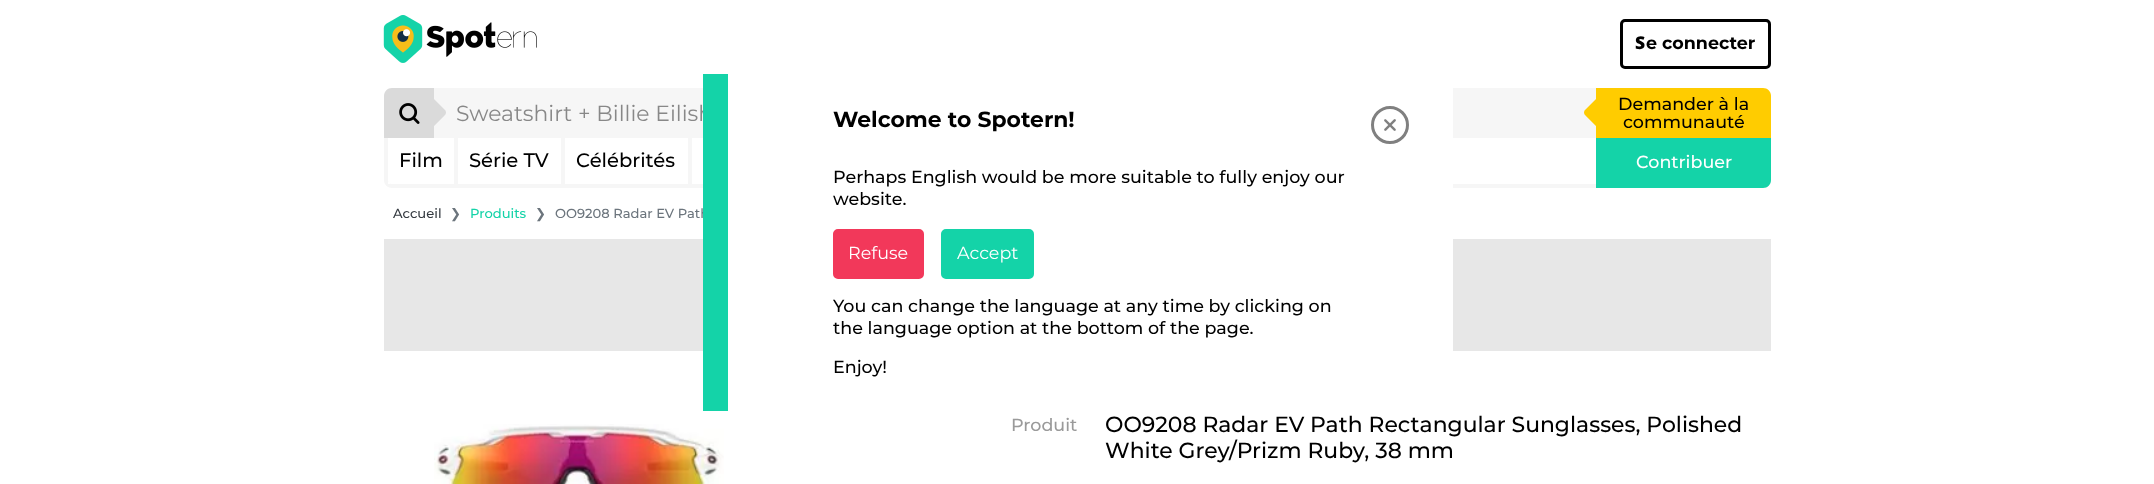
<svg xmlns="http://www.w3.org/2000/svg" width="2154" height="484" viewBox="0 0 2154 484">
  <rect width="100%" height="100%" fill="#fff"/>
  <image x="383" y="15" width="40" height="48" href="img/1.png"/>
  <image x="426" y="22" width="111" height="35" href="img/2.png"/>
  <image x="392" y="25" width="22" height="28" href="img/3.png"/>
  <image x="397" y="31" width="12" height="11" href="img/5.png"/>
  <image x="403" y="29" width="8" height="8" href="img/4.png"/>
  <rect x="1621.5" y="20.5" width="148" height="47" rx="3.5" fill="none" stroke="#000" stroke-width="3"/>
  <path d="M392 88H434V138H384V96C384 91.5 387.5 88 392 88Z" fill="#dadada"/>
  <path d="M434 88h1162v50H434z" fill="#f6f6f6"/>
  <path d="M433 98L444.5 109.5C446.5 111 446.5 114 444.5 115.5L433 127C431.5 129 428.5 129 427 127L415.5 115.5C413.5 114 413.5 111 415.5 109.5L427 98C428.5 96 431.5 96 433 98Z" fill="#dadada"/>
  <image x="399" y="103" width="21" height="21" href="img/6.png"/>
  <path d="M1596 88H1763C1767.5 88 1771 91.5 1771 96V138H1596Z" fill="#fc0"/>
  <path d="M1603 98L1614.5 109.5C1616.5 111 1616.5 114 1614.5 115.5L1603 127C1601.5 129 1598.5 129 1597 127L1585.5 115.5C1583.5 114 1583.5 111 1585.5 109.5L1597 98C1598.5 96 1601.5 96 1603 98Z" fill="#fc0"/>
  <path d="M384 138H1771V180C1771 184 1768 188 1763 188H392C387 188 384 184 384 180ZM388 138H1768V180C1768 182 1766 184 1763 184H392C389 184 388 182 388 180Z" fill="#f6f6f6" fill-rule="evenodd"/>
  <path d="M388 182h2v2H388z" fill="#fff"/>
  <path d="M454 138h4v46H454z" fill="#f6f6f6"/>
  <path d="M561 138h4v46H561z" fill="#f6f6f6"/>
  <path d="M688 138h4v46H688z" fill="#f6f6f6"/>
  <path d="M1596 138H1771V180C1771 184.5 1767.5 188 1763 188H1596Z" fill="#14d3a8"/>
  <path d="M384 239h1387v112H384z" fill="#e7e7e7"/>
  <image x="434" y="424" width="290" height="60" href="img/8.png"/>
  <text x="1635" y="49" font-family="Noto Sans" font-size="17.5" font-weight="900" fill="#000">S</text>
  <text x="1646" y="49" font-family="Montserrat" font-size="17.5" font-weight="bold" fill="#000">e connecter</text>
  <text x="456" y="121" font-family="Montserrat" font-size="21.9" fill="#888">Sweatshirt + Billie Eilish</text>
  <g font-family="Montserrat" font-size="17.5" font-weight="500" fill="#000">
    <text x="1618" y="110">Demander à la</text>
    <text x="1623" y="128">communauté</text>
  </g>
  <g font-family="Montserrat" font-size="19.5" font-weight="500" fill="#000">
    <text x="399" y="167">Film</text>
    <text x="469" y="167">Série TV</text>
    <text x="576" y="167">Célébrités</text>
  </g>
  <text x="1636" y="168" font-family="Montserrat" font-size="17.5" font-weight="500" fill="#fff">Contribuer</text>
  <text x="393" y="218" font-family="Montserrat" font-size="13.1" font-weight="500" fill="#343a40">Accueil</text>
  <text x="450" y="218" font-family="DejaVu Sans" font-size="13.1" fill="#6c757d">❯</text>
  <text x="470" y="218" font-family="Montserrat" font-size="13.1" font-weight="500" fill="#14d3a8">Produits</text>
  <text x="535" y="218" font-family="DejaVu Sans" font-size="13.1" fill="#6c757d">❯</text>
  <text x="555" y="218" font-family="Montserrat" font-size="13.1" font-weight="500" fill="#6c757d">OO9208 Radar EV Path</text>
  <rect x="703" y="71" width="750" height="343" rx="5" fill="#fff"/>
  <path d="M703 74h25v337H703z" fill="#14d3a8"/>
  <text x="833" y="127" font-family="Montserrat" font-size="21.9" font-weight="bold" fill="#000">Welcome to Spotern!</text>
  <circle cx="1390" cy="125" r="17.5" fill="none" stroke="#808080" stroke-width="3"/>
  <image x="1384" y="119" width="12" height="12" href="img/7.png"/>
  <g font-family="Montserrat" font-size="17.5" font-weight="500" fill="#000">
    <text x="833" y="183">Perhaps English would be more suitable to fully enjoy our</text>
    <text x="833" y="205">website.</text>
  </g>
  <rect x="834.5" y="230.5" width="88" height="47" rx="3.5" fill="#f2385a" stroke="#f2385a" stroke-width="3"/>
  <text x="848" y="259" font-family="Montserrat" font-size="17.5" fill="#fff">Refuse</text>
  <rect x="942.5" y="230.5" width="90" height="47" rx="3.5" fill="#14d3a8" stroke="#14d3a8" stroke-width="3"/>
  <text x="957" y="259" font-family="Montserrat" font-size="17.5" fill="#fff">Accept</text>
  <g font-family="Montserrat" font-size="17.5" font-weight="500" fill="#000">
    <text x="833" y="312">You can change the language at any time by clicking on</text>
    <text x="833" y="334">the language option at the bottom of the page.</text>
    <text x="833" y="373">Enjoy!</text>
  </g>
  <text x="1011" y="431" font-family="Montserrat" font-size="17.5" font-weight="500" fill="#9a9a9a">Produit</text>
  <g font-family="Montserrat" font-size="21.9" font-weight="500" fill="#000">
    <text x="1105" y="432">OO9208 Radar EV Path Rectangular Sunglasses, Polished</text>
    <text x="1105" y="458">White Grey/Prizm Ruby, 38 mm</text>
  </g>
</svg>
